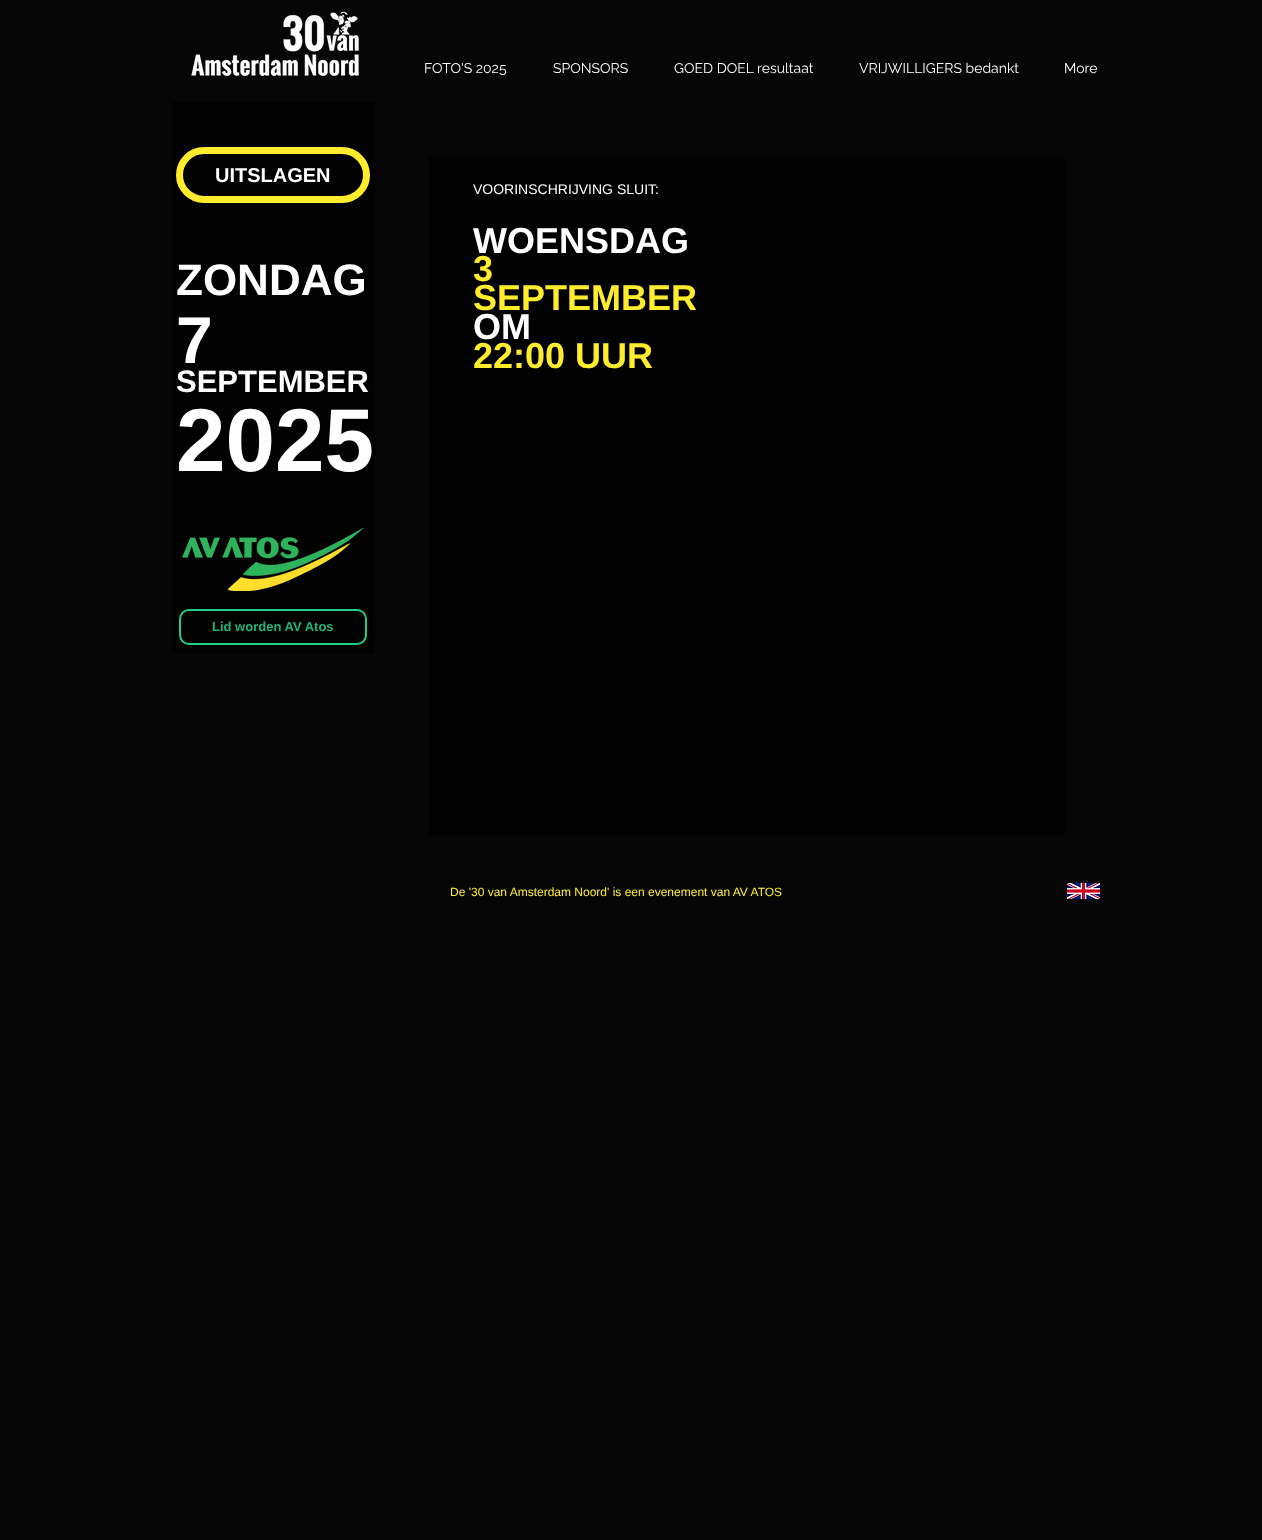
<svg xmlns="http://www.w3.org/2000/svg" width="1262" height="1540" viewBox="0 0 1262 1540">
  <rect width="100%" height="100%" fill="#060606"/>
  <image x="191" y="11" width="168" height="65" href="img/1.png"/>
  <path d="M172 102h203v552H172z" fill="#020202"/>
  <rect x="179.5" y="150.5" width="187" height="49" rx="24.5" fill="none" stroke="#ffed2d" stroke-width="7"/>
  <image x="182" y="528" width="182" height="63" href="img/2.png"/>
  <rect x="180" y="610" width="186" height="34" rx="9" fill="none" stroke="#20ce88" stroke-width="2"/>
  <path d="M429 155h636v681H429z" fill="#020202"/>
  <image x="1067" y="883" width="33" height="16" href="img/3.png"/>
  <g font-family="Raleway" font-size="14" fill="#fff">
    <text x="424" y="73">FOTO'S 2025</text>
    <text x="553" y="73">SPONSORS</text>
    <text x="674" y="73">GOED DOEL resultaat</text>
    <text x="859" y="73">VRIJWILLIGERS bedankt</text>
    <text x="1064" y="73">More</text>
  </g>
  <text x="215" y="182" font-family="Liberation Sans" font-size="20" font-weight="bold" fill="#fff">UITSLAGEN</text>
  <text x="176" y="295" font-family="Liberation Sans" font-size="44" font-weight="bold" fill="#fff">ZONDAG</text>
  <text x="176" y="363" font-family="Liberation Sans" font-size="66" font-weight="bold" fill="#fff">7</text>
  <text x="176" y="392" font-family="Liberation Sans" font-size="31" font-weight="bold" fill="#fff">SEPTEMBER</text>
  <text x="176" y="471" font-family="Liberation Sans" font-size="89" font-weight="bold" fill="#fff">2025</text>
  <text x="212" y="631" font-family="Liberation Sans" font-size="13" font-weight="bold" fill="#1db578">Lid worden AV Atos</text>
  <text x="473" y="194" font-family="Liberation Sans" font-size="14" fill="#fff">VOORINSCHRIJVING SLUIT:</text>
  <text x="473" y="253" font-family="Liberation Sans" font-size="36" font-weight="bold" fill="#fff">WOENSDAG</text>
  <g font-family="Liberation Sans" font-size="36" font-weight="bold" fill="#ffed2d">
    <text x="473" y="281">3</text>
    <text x="473" y="310">SEPTEMBER</text>
  </g>
  <text x="473" y="339" font-family="Liberation Sans" font-size="36" font-weight="bold" fill="#fff">OM</text>
  <text x="473" y="368" font-family="Liberation Sans" font-size="36" font-weight="bold" fill="#ffed2d">22:00 UUR</text>
  <text x="450" y="896" font-family="Liberation Sans" font-size="12" fill="#ffed2d">De '30 van Amsterdam Noord' is een evenement van AV ATOS</text>
</svg>
